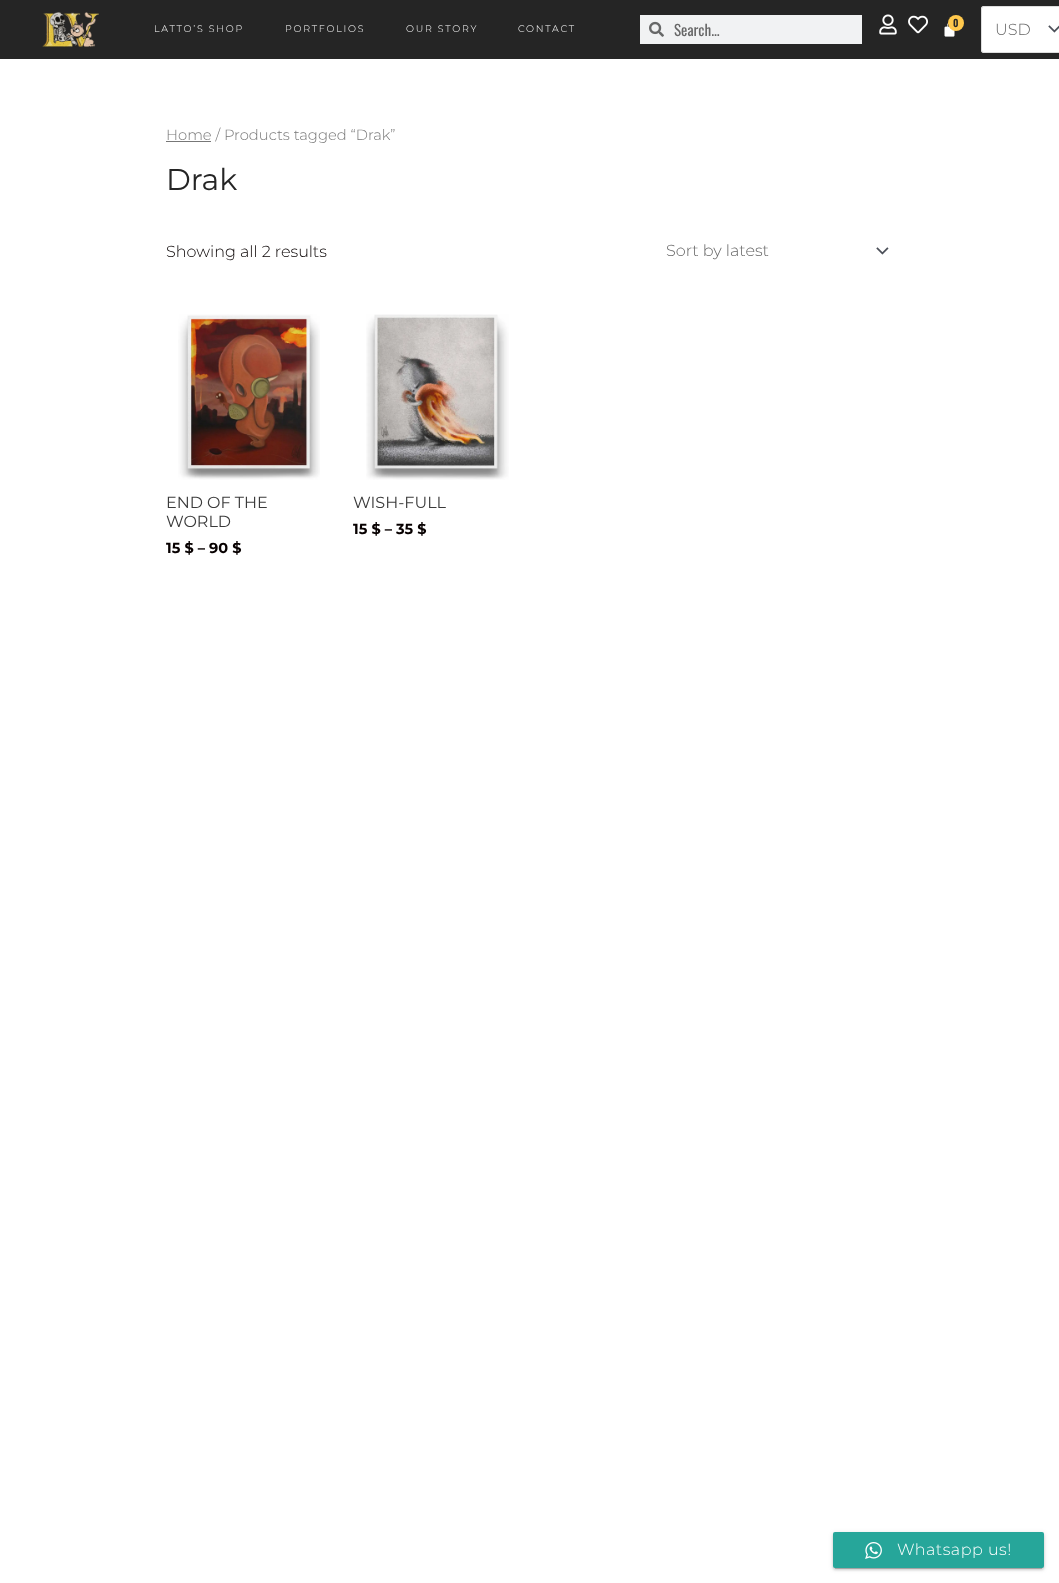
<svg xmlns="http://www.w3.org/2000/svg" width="1059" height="1583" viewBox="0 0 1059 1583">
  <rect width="100%" height="100%" fill="#fff"/>
  <path d="M0 0h1059v59H0z" fill="#252525"/>
  <image x="42" y="12" width="57" height="35" href="img/1.png"/>
  <path d="M640 15h222v29H640z" fill="#f1f2f3"/>
  <image x="649" y="21" width="15" height="16" href="img/2.png"/>
  <image x="879" y="14" width="18" height="21" href="img/3.png"/>
  <image x="908" y="15" width="20" height="19" href="img/4.png"/>
  <image x="944" y="23" width="11" height="14" href="img/5.png"/>
  <circle cx="956" cy="23" r="8" fill="#ffc84c"/>
  <rect x="981" y="6" width="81" height="47" rx="3" fill="#fff"/>
  <image x="1048" y="25" width="11" height="8" href="img/6.png"/>
  <rect x="981.5" y="6.5" width="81" height="46" rx="2.5" fill="none" stroke="#ddd"/>
  <path d="M166 141h45v1H166z" fill="#777"/>
  <image x="876" y="247" width="13" height="8" href="img/7.png"/>
  <image x="178" y="314" width="142" height="166" href="img/8.png"/>
  <image x="366" y="314" width="143" height="166" href="img/9.png"/>
  <path d="M835 1537h207v32H835z" fill="#00000033" filter="blur(0.5px)"/>
  <rect x="833" y="1533" width="211" height="36" rx="2" fill="#0000001f" filter="blur(2.5px)"/>
  <rect x="833" y="1534" width="211" height="36" rx="2" fill="#00000024" filter="blur(1px)"/>
  <rect x="833" y="1532" width="211" height="36" rx="2" fill="#26a69a"/>
  <image x="865" y="1542" width="17" height="17" href="img/10.png"/>
  <g font-family="Montserrat" font-size="9.5" font-weight="300" letter-spacing="1.75" fill="#fff">
    <text x="154" y="32">LATTO’S SHOP</text>
    <text x="285" y="32">PORTFOLIOS</text>
    <text x="406" y="32">OUR STORY</text>
    <text x="518" y="32">CONTACT</text>
  </g>
  <text x="674" y="36" font-family="Oswald" font-size="15" fill="#666">Search...</text>
  <text x="953" y="27" font-family="Oswald" font-size="10" font-weight="600" fill="#252525">0</text>
  <text x="995" y="35" font-family="Montserrat" font-size="16" font-weight="300" fill="#666">USD</text>
  <text x="166" y="140" font-family="Montserrat" font-size="14.75" font-weight="300" fill="#777">Home / Products tagged “Drak”</text>
  <text x="166" y="190" font-family="Montserrat" font-size="30" fill="#252525">Drak</text>
  <text x="166" y="257" font-family="Montserrat" font-size="16" font-weight="300" fill="#070000">Showing all 2 results</text>
  <text x="666" y="256" font-family="Montserrat" font-size="16" font-weight="300" fill="#666">Sort by latest</text>
  <g font-family="Montserrat" font-size="16" fill="#3a3a3a">
    <text x="166" y="508">END OF THE</text>
    <text x="166" y="527">WORLD</text>
  </g>
  <text x="166" y="553" font-family="Montserrat" font-size="14.5" font-weight="bold" fill="#070000">15 $ – 90 $</text>
  <text x="353" y="508" font-family="Montserrat" font-size="16" fill="#3a3a3a">WISH-FULL</text>
  <text x="353" y="534" font-family="Montserrat" font-size="14.5" font-weight="bold" fill="#070000">15 $ – 35 $</text>
  <text x="897" y="1555" font-family="Montserrat" font-size="16" font-weight="300" letter-spacing="0.5" fill="#fff">Whatsapp us!</text>
</svg>
